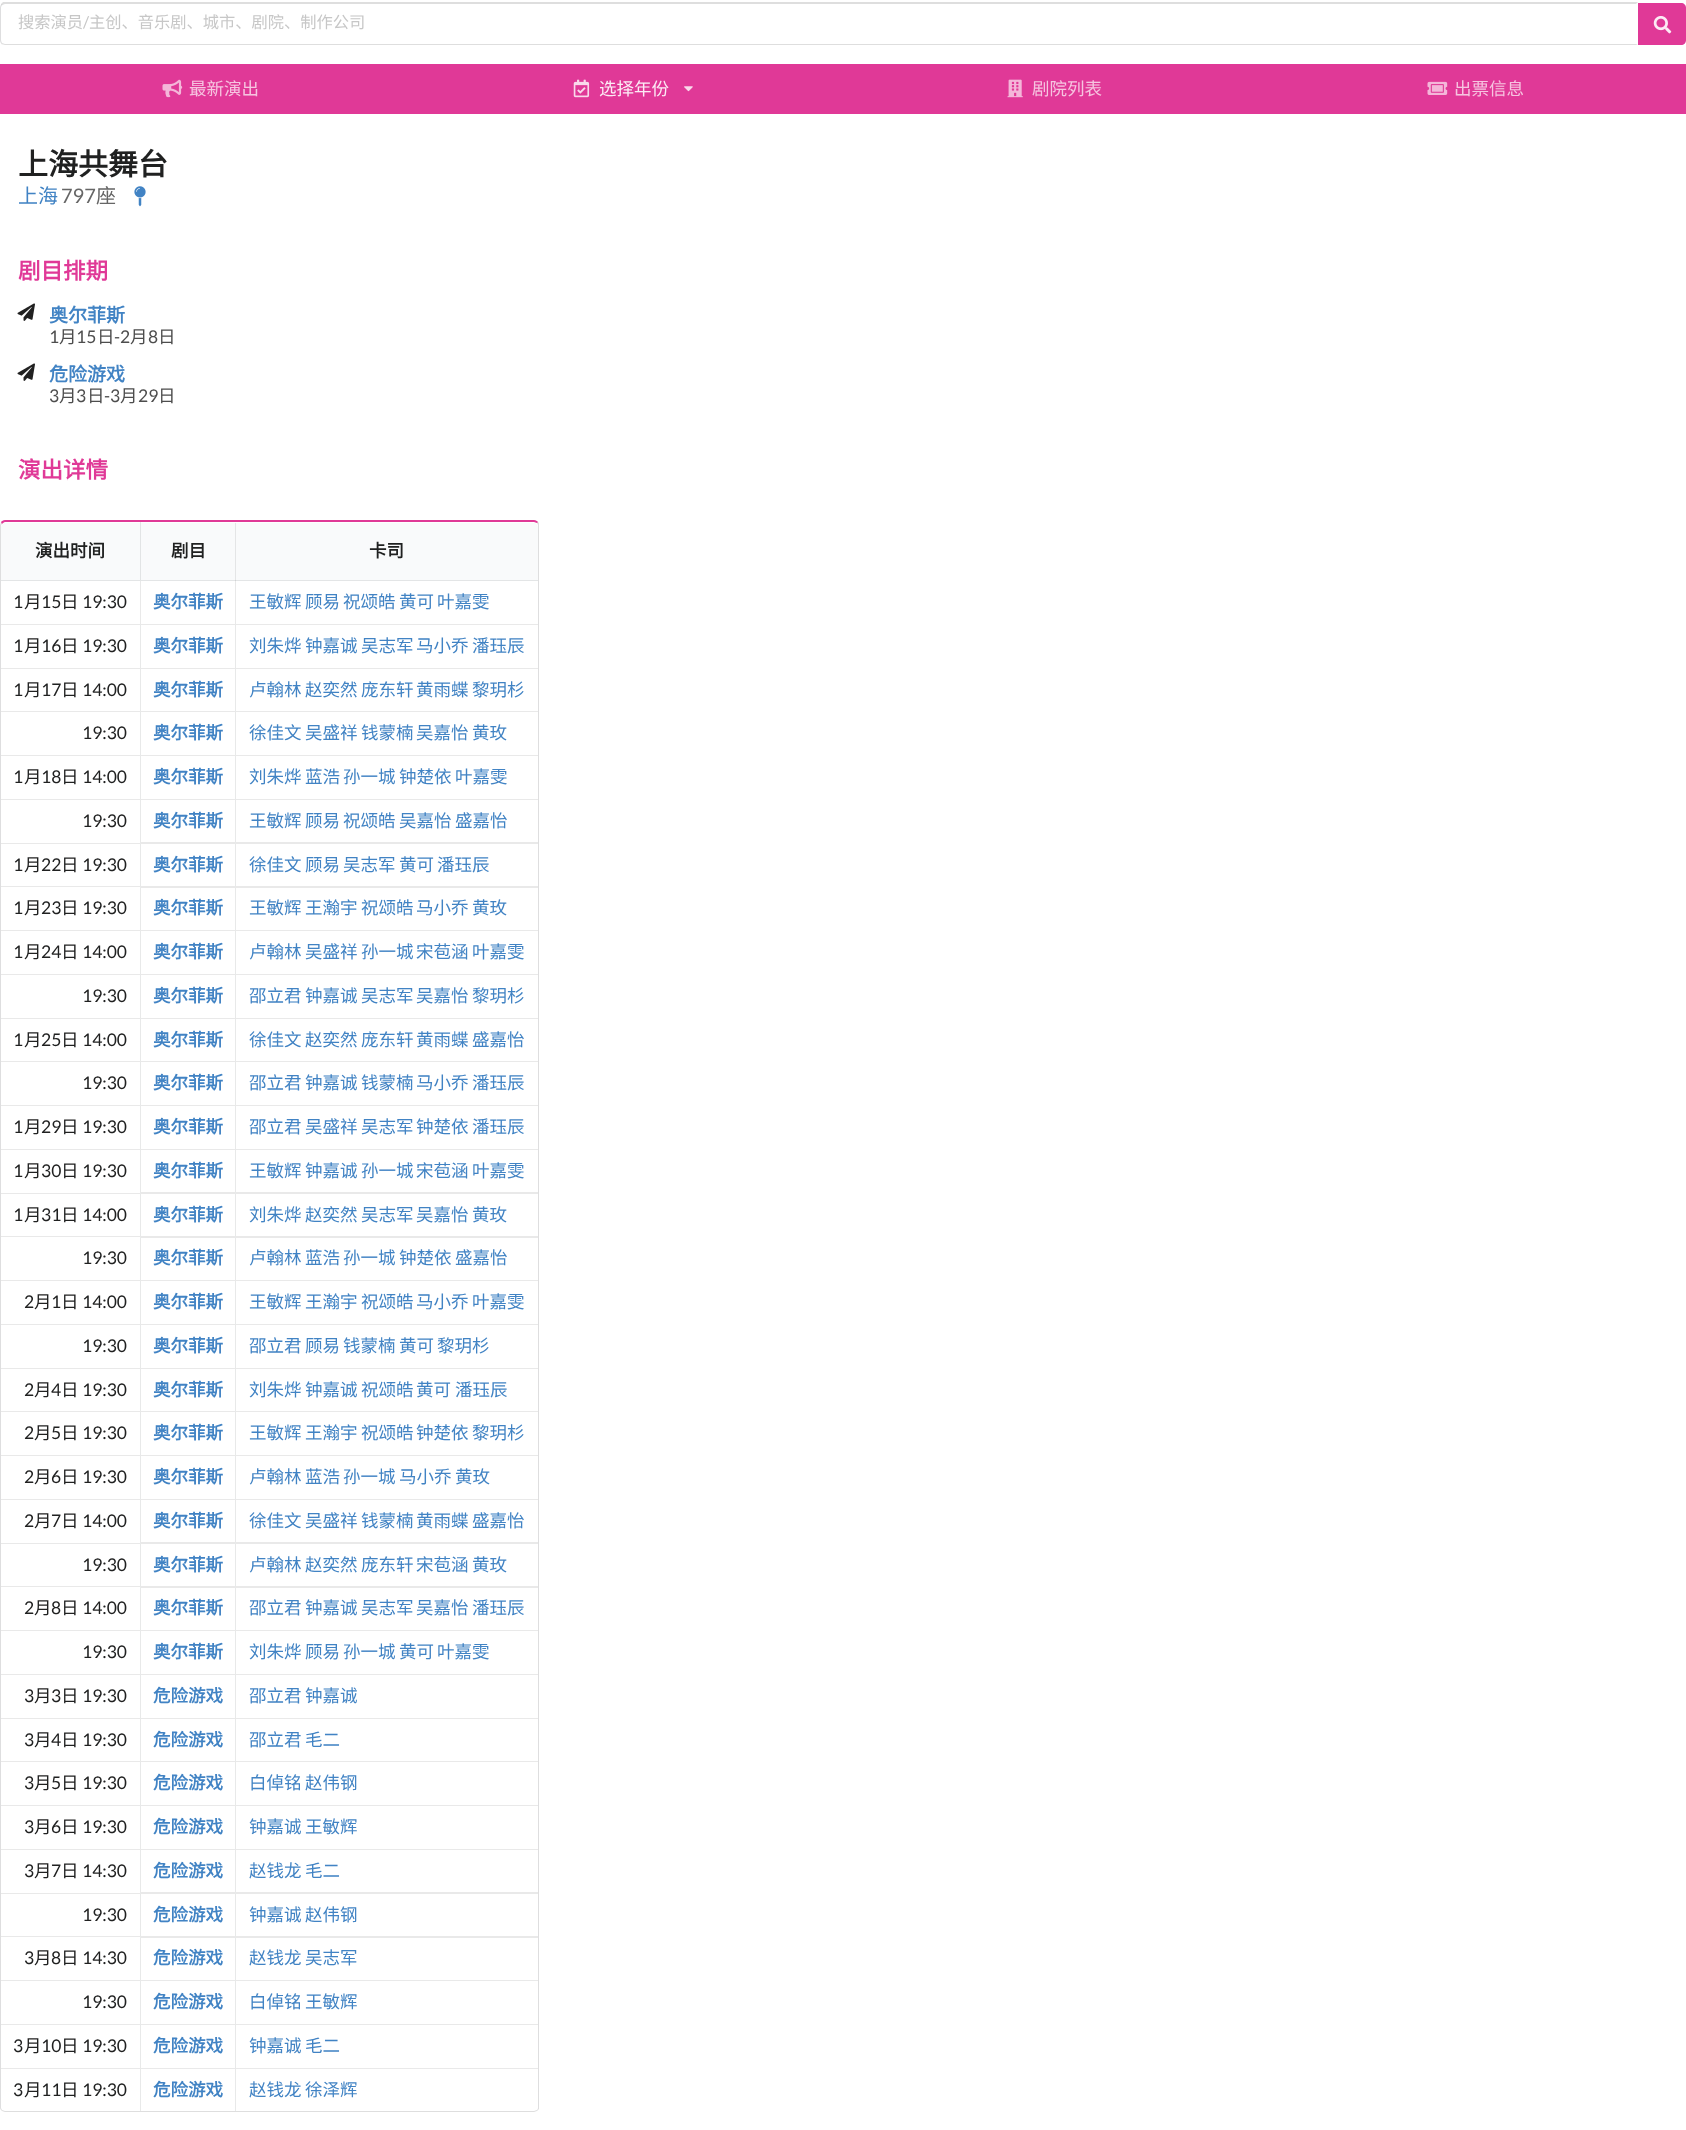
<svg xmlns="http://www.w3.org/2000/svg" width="1686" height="2130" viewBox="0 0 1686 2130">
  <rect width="100%" height="100%" fill="#fff"/>
  <path d="M5 4L2 5L1 4L3 2H1638L1636 4Z" fill="#dedede"/>
  <path d="M1638 45L1636 44H5L2 43L1 44C2 44 4 45 5 45Z" fill="#dedede"/>
  <path d="M0 8V40C0 41.5 .5 43 1.5 43.5L2 43C1.5 42 1 41 1 40V8C1 6.5 1.5 5.5 2.5 5L1.5 4C.5 5 0 6.5 0 8Z" fill="#22242626"/>
  <path d="M1638 3H1681C1684 3 1686 5 1686 8V40C1686 43 1684 45 1681 45H1638Z" fill="#e03997"/>
  <image x="1653" y="16" width="19" height="18" href="img/1.png"/>
  <path d="M0 64h1686v50H0z" fill="#e03997"/>
  <image x="162" y="79" width="21" height="19" href="img/2.png"/>
  <image x="573" y="79" width="17" height="19" href="img/3.png"/>
  <image x="684" y="86" width="9" height="6" href="img/4.png"/>
  <image x="1007" y="79" width="16" height="19" href="img/5.png"/>
  <image x="1427" y="81" width="21" height="14" href="img/6.png"/>
  <image x="134" y="186" width="12" height="21" href="img/7.png"/>
  <image x="17" y="303" width="18" height="18" href="img/8.png"/>
  <image x="17" y="363" width="18" height="18" href="img/8.png"/>
  <path d="M5 520C3 520 2 521 1 522L2 524C3 523 4 522 5 522H534C535 522 536 523 537 523L538 522C537 521 536 520 534 520Z" fill="#e03997"/>
  <path d="M539 2109L537 2111V2110C537 2110 538 2109 538 2108V525L537 523L538 522L539 523Z" fill="#22242626"/>
  <path d="M537 2111L534 2112H5L2 2111V2110L5 2111H534L537 2110Z" fill="#dedede"/>
  <path d="M0 525V2108C0 2109 1 2110 2 2111V2110L1 2108V525L2 524L1 522Z" fill="#22242626"/>
  <path d="M6 523H140V581H1V528C1 525 3 523 6 523Z" fill="#f9fafb"/>
  <path d="M1 580h139v1H1z" fill="#e3e5e6"/>
  <path d="M140 523h95v58H140z" fill="#f9fafb"/>
  <path d="M235 581H140L141 580H235Z" fill="#e3e5e6"/>
  <path d="M140 581V522H141V580Z" fill="#2224261a"/>
  <path d="M235 523H533C536 523 538 525 538 528V581H235Z" fill="#f9fafb"/>
  <path d="M235 523h1v58H235z" fill="#e4e5e6"/>
  <path d="M235 580h303v1H235z" fill="#e3e5e6"/>
  <path d="M235 580h1v1H235z" fill="#d0d2d3"/>
  <path d="M140 581h1v43H140z" fill="#e9e9e9"/>
  <path d="M235 581h1v43H235z" fill="#e9e9e9"/>
  <path d="M1 624h139v1H1z" fill="#e9e9e9"/>
  <path d="M140 624H235V625H141Z" fill="#e9e9e9"/>
  <path d="M140 668V624L141 625V668Z" fill="#2224261a"/>
  <path d="M235 624H538V625H236Z" fill="#e9e9e9"/>
  <path d="M235 668V624L236 625V668Z" fill="#2224261a"/>
  <path d="M1 668h139v1H1z" fill="#e9e9e9"/>
  <path d="M140 668H235V669H141Z" fill="#e9e9e9"/>
  <path d="M140 711V668L141 669V711Z" fill="#2224261a"/>
  <path d="M235 668H538V669H236Z" fill="#e9e9e9"/>
  <path d="M235 711V668L236 669V711Z" fill="#2224261a"/>
  <path d="M1 711h139v1H1z" fill="#e9e9e9"/>
  <path d="M140 711H235V712H141Z" fill="#e9e9e9"/>
  <path d="M140 755V711L141 712V755Z" fill="#2224261a"/>
  <path d="M235 711H538V712H236Z" fill="#e9e9e9"/>
  <path d="M235 755V711L236 712V755Z" fill="#2224261a"/>
  <path d="M1 755h139v1H1z" fill="#e9e9e9"/>
  <path d="M140 755H235V756H141Z" fill="#e9e9e9"/>
  <path d="M140 799V755L141 756V799Z" fill="#2224261a"/>
  <path d="M235 755H538V756H236Z" fill="#e9e9e9"/>
  <path d="M235 799V755L236 756V799Z" fill="#2224261a"/>
  <path d="M1 799h139v1H1z" fill="#e9e9e9"/>
  <path d="M140 799H235V800H141Z" fill="#e9e9e9"/>
  <path d="M140 842V799L141 800V842Z" fill="#2224261a"/>
  <path d="M235 799H538V800H236Z" fill="#e9e9e9"/>
  <path d="M235 842V799L236 800V842Z" fill="#2224261a"/>
  <path d="M1 843h139v1H1z" fill="#e9e9e9"/>
  <path d="M140 842H235V844H141Z" fill="#e9e9e9"/>
  <path d="M140 886V842L141 844V886Z" fill="#2224261a"/>
  <path d="M235 842H538V844H236Z" fill="#e9e9e9"/>
  <path d="M235 886V842L236 844V886Z" fill="#2224261a"/>
  <path d="M1 886h139v1H1z" fill="#e9e9e9"/>
  <path d="M140 886H235V888H141Z" fill="#e9e9e9"/>
  <path d="M140 930V886L141 888V930Z" fill="#2224261a"/>
  <path d="M235 886H538V888H236Z" fill="#e9e9e9"/>
  <path d="M235 930V886L236 888V930Z" fill="#2224261a"/>
  <path d="M1 930h139v1H1z" fill="#e9e9e9"/>
  <path d="M140 930H235V931H141Z" fill="#e9e9e9"/>
  <path d="M140 974V930L141 931V974Z" fill="#2224261a"/>
  <path d="M235 930H538V931H236Z" fill="#e9e9e9"/>
  <path d="M235 974V930L236 931V974Z" fill="#2224261a"/>
  <path d="M1 974h139v1H1z" fill="#e9e9e9"/>
  <path d="M140 974H235V975H141Z" fill="#e9e9e9"/>
  <path d="M140 1018V974L141 975V1018Z" fill="#2224261a"/>
  <path d="M235 974H538V975H236Z" fill="#e9e9e9"/>
  <path d="M235 1018V974L236 975V1018Z" fill="#2224261a"/>
  <path d="M1 1018h139v1H1z" fill="#e9e9e9"/>
  <path d="M140 1018H235V1019H141Z" fill="#e9e9e9"/>
  <path d="M140 1061V1018L141 1019V1061Z" fill="#2224261a"/>
  <path d="M235 1018H538V1019H236Z" fill="#e9e9e9"/>
  <path d="M235 1061V1018L236 1019V1061Z" fill="#2224261a"/>
  <path d="M1 1061h139v1H1z" fill="#e9e9e9"/>
  <path d="M140 1061H235V1062H141Z" fill="#e9e9e9"/>
  <path d="M140 1105V1061L141 1062V1105Z" fill="#2224261a"/>
  <path d="M235 1061H538V1062H236Z" fill="#e9e9e9"/>
  <path d="M235 1105V1061L236 1062V1105Z" fill="#2224261a"/>
  <path d="M1 1105h139v1H1z" fill="#e9e9e9"/>
  <path d="M140 1105H235V1106H141Z" fill="#e9e9e9"/>
  <path d="M140 1149V1105L141 1106V1149Z" fill="#2224261a"/>
  <path d="M235 1105H538V1106H236Z" fill="#e9e9e9"/>
  <path d="M235 1149V1105L236 1106V1149Z" fill="#2224261a"/>
  <path d="M1 1149h139v1H1z" fill="#e9e9e9"/>
  <path d="M140 1149H235V1150H141Z" fill="#e9e9e9"/>
  <path d="M140 1192V1149L141 1150V1192Z" fill="#2224261a"/>
  <path d="M235 1149H538V1150H236Z" fill="#e9e9e9"/>
  <path d="M235 1192V1149L236 1150V1192Z" fill="#2224261a"/>
  <path d="M1 1193h139v1H1z" fill="#e9e9e9"/>
  <path d="M140 1192H235V1194H141Z" fill="#e9e9e9"/>
  <path d="M140 1236V1192L141 1194V1236Z" fill="#2224261a"/>
  <path d="M235 1192H538V1194H236Z" fill="#e9e9e9"/>
  <path d="M235 1236V1192L236 1194V1236Z" fill="#2224261a"/>
  <path d="M1 1236h139v1H1z" fill="#e9e9e9"/>
  <path d="M140 1236H235V1238H141Z" fill="#e9e9e9"/>
  <path d="M140 1280V1236L141 1238V1280Z" fill="#2224261a"/>
  <path d="M235 1236H538V1238H236Z" fill="#e9e9e9"/>
  <path d="M235 1280V1236L236 1238V1280Z" fill="#2224261a"/>
  <path d="M1 1280h139v1H1z" fill="#e9e9e9"/>
  <path d="M140 1280H235V1281H141Z" fill="#e9e9e9"/>
  <path d="M140 1324V1280L141 1281V1324Z" fill="#2224261a"/>
  <path d="M235 1280H538V1281H236Z" fill="#e9e9e9"/>
  <path d="M235 1324V1280L236 1281V1324Z" fill="#2224261a"/>
  <path d="M1 1324h139v1H1z" fill="#e9e9e9"/>
  <path d="M140 1324H235V1325H141Z" fill="#e9e9e9"/>
  <path d="M140 1368V1324L141 1325V1368Z" fill="#2224261a"/>
  <path d="M235 1324H538V1325H236Z" fill="#e9e9e9"/>
  <path d="M235 1368V1324L236 1325V1368Z" fill="#2224261a"/>
  <path d="M1 1368h139v1H1z" fill="#e9e9e9"/>
  <path d="M140 1368H235V1369H141Z" fill="#e9e9e9"/>
  <path d="M140 1411V1368L141 1369V1411Z" fill="#2224261a"/>
  <path d="M235 1368H538V1369H236Z" fill="#e9e9e9"/>
  <path d="M235 1411V1368L236 1369V1411Z" fill="#2224261a"/>
  <path d="M1 1411h139v1H1z" fill="#e9e9e9"/>
  <path d="M140 1411H235V1412H141Z" fill="#e9e9e9"/>
  <path d="M140 1455V1411L141 1412V1455Z" fill="#2224261a"/>
  <path d="M235 1411H538V1412H236Z" fill="#e9e9e9"/>
  <path d="M235 1455V1411L236 1412V1455Z" fill="#2224261a"/>
  <path d="M1 1455h139v1H1z" fill="#e9e9e9"/>
  <path d="M140 1455H235V1456H141Z" fill="#e9e9e9"/>
  <path d="M140 1499V1455L141 1456V1499Z" fill="#2224261a"/>
  <path d="M235 1455H538V1456H236Z" fill="#e9e9e9"/>
  <path d="M235 1499V1455L236 1456V1499Z" fill="#2224261a"/>
  <path d="M1 1499h139v1H1z" fill="#e9e9e9"/>
  <path d="M140 1499H235V1500H141Z" fill="#e9e9e9"/>
  <path d="M140 1542V1499L141 1500V1542Z" fill="#2224261a"/>
  <path d="M235 1499H538V1500H236Z" fill="#e9e9e9"/>
  <path d="M235 1542V1499L236 1500V1542Z" fill="#2224261a"/>
  <path d="M1 1543h139v1H1z" fill="#e9e9e9"/>
  <path d="M140 1542H235V1544H141Z" fill="#e9e9e9"/>
  <path d="M140 1586V1542L141 1544V1586Z" fill="#2224261a"/>
  <path d="M235 1542H538V1544H236Z" fill="#e9e9e9"/>
  <path d="M235 1586V1542L236 1544V1586Z" fill="#2224261a"/>
  <path d="M1 1586h139v1H1z" fill="#e9e9e9"/>
  <path d="M140 1586H235V1588H141Z" fill="#e9e9e9"/>
  <path d="M140 1630V1586L141 1588V1630Z" fill="#2224261a"/>
  <path d="M235 1586H538V1588H236Z" fill="#e9e9e9"/>
  <path d="M235 1630V1586L236 1588V1630Z" fill="#2224261a"/>
  <path d="M1 1630h139v1H1z" fill="#e9e9e9"/>
  <path d="M140 1630H235V1631H141Z" fill="#e9e9e9"/>
  <path d="M140 1674V1630L141 1631V1674Z" fill="#2224261a"/>
  <path d="M235 1630H538V1631H236Z" fill="#e9e9e9"/>
  <path d="M235 1674V1630L236 1631V1674Z" fill="#2224261a"/>
  <path d="M1 1674h139v1H1z" fill="#e9e9e9"/>
  <path d="M140 1674H235V1675H141Z" fill="#e9e9e9"/>
  <path d="M140 1718V1674L141 1675V1718Z" fill="#2224261a"/>
  <path d="M235 1674H538V1675H236Z" fill="#e9e9e9"/>
  <path d="M235 1718V1674L236 1675V1718Z" fill="#2224261a"/>
  <path d="M1 1718h139v1H1z" fill="#e9e9e9"/>
  <path d="M140 1718H235V1719H141Z" fill="#e9e9e9"/>
  <path d="M140 1761V1718L141 1719V1761Z" fill="#2224261a"/>
  <path d="M235 1718H538V1719H236Z" fill="#e9e9e9"/>
  <path d="M235 1761V1718L236 1719V1761Z" fill="#2224261a"/>
  <path d="M1 1761h139v1H1z" fill="#e9e9e9"/>
  <path d="M140 1761H235V1762H141Z" fill="#e9e9e9"/>
  <path d="M140 1805V1761L141 1762V1805Z" fill="#2224261a"/>
  <path d="M235 1761H538V1762H236Z" fill="#e9e9e9"/>
  <path d="M235 1805V1761L236 1762V1805Z" fill="#2224261a"/>
  <path d="M1 1805h139v1H1z" fill="#e9e9e9"/>
  <path d="M140 1805H235V1806H141Z" fill="#e9e9e9"/>
  <path d="M140 1849V1805L141 1806V1849Z" fill="#2224261a"/>
  <path d="M235 1805H538V1806H236Z" fill="#e9e9e9"/>
  <path d="M235 1849V1805L236 1806V1849Z" fill="#2224261a"/>
  <path d="M1 1849h139v1H1z" fill="#e9e9e9"/>
  <path d="M140 1849H235V1850H141Z" fill="#e9e9e9"/>
  <path d="M140 1892V1849L141 1850V1892Z" fill="#2224261a"/>
  <path d="M235 1849H538V1850H236Z" fill="#e9e9e9"/>
  <path d="M235 1892V1849L236 1850V1892Z" fill="#2224261a"/>
  <path d="M1 1893h139v1H1z" fill="#e9e9e9"/>
  <path d="M140 1892H235V1894H141Z" fill="#e9e9e9"/>
  <path d="M140 1936V1892L141 1894V1936Z" fill="#2224261a"/>
  <path d="M235 1892H538V1894H236Z" fill="#e9e9e9"/>
  <path d="M235 1936V1892L236 1894V1936Z" fill="#2224261a"/>
  <path d="M1 1936h139v1H1z" fill="#e9e9e9"/>
  <path d="M140 1936H235V1938H141Z" fill="#e9e9e9"/>
  <path d="M140 1980V1936L141 1938V1980Z" fill="#2224261a"/>
  <path d="M235 1936H538V1938H236Z" fill="#e9e9e9"/>
  <path d="M235 1980V1936L236 1938V1980Z" fill="#2224261a"/>
  <path d="M1 1980h139v1H1z" fill="#e9e9e9"/>
  <path d="M140 1980H235V1981H141Z" fill="#e9e9e9"/>
  <path d="M140 2024V1980L141 1981V2024Z" fill="#2224261a"/>
  <path d="M235 1980H538V1981H236Z" fill="#e9e9e9"/>
  <path d="M235 2024V1980L236 1981V2024Z" fill="#2224261a"/>
  <path d="M1 2024h139v1H1z" fill="#e9e9e9"/>
  <path d="M140 2024H235V2025H141Z" fill="#e9e9e9"/>
  <path d="M140 2068V2024L141 2025V2068Z" fill="#2224261a"/>
  <path d="M235 2024H538V2025H236Z" fill="#e9e9e9"/>
  <path d="M235 2068V2024L236 2025V2068Z" fill="#2224261a"/>
  <path d="M1 2068h139v1H1z" fill="#e9e9e9"/>
  <path d="M140 2068H235V2069H141Z" fill="#e9e9e9"/>
  <path d="M140 2111V2068L141 2069V2111Z" fill="#2224261a"/>
  <path d="M235 2068H538V2069H236Z" fill="#e9e9e9"/>
  <path d="M235 2111V2068L236 2069V2111Z" fill="#2224261a"/>
  <text x="18" y="28" font-family="Noto Sans CJK SC" font-size="16.25" fill="#c7c7c7">搜索演员</text>
  <text x="83" y="28" font-family="Lato" font-size="16.25" fill="#c7c7c7">/</text>
  <text x="89" y="28" font-family="Noto Sans CJK SC" font-size="16.25" fill="#c7c7c7">主创、音乐剧、城市、剧院、制作公司</text>
  <text x="189" y="95" font-family="Noto Sans CJK SC" font-size="17.5" fill="#f6c4e0">最新演出</text>
  <text x="599" y="95" font-family="Noto Sans CJK SC" font-size="17.5" fill="#fcebf5">选择年份</text>
  <g font-family="Noto Sans CJK SC" font-size="17.5" fill="#f6c4e0">
    <text x="1032" y="95">剧院列表</text>
    <text x="1454" y="95">出票信息</text>
  </g>
  <text x="18" y="175" font-family="Noto Sans CJK SC" font-size="30" font-weight="bold" fill="#202121">上海共舞台</text>
  <text x="18" y="203" font-family="Noto Sans CJK SC" font-size="20" fill="#4183c4">上海</text>
  <text x="61" y="203" font-family="Lato" font-size="20" fill="#666">797</text>
  <text x="96" y="203" font-family="Noto Sans CJK SC" font-size="20" fill="#666">座</text>
  <text x="18" y="279" font-family="Noto Sans CJK SC" font-size="22.5" font-weight="bold" fill="#e03997">剧目排期</text>
  <text x="49" y="322" font-family="Noto Sans CJK SC" font-size="19" font-weight="bold" fill="#4183c4">奥尔菲斯</text>
  <text x="49" y="343" font-family="Lato" font-size="17.5" fill="#4d4d4d">1</text>
  <text x="59" y="343" font-family="Noto Sans CJK SC" font-size="17.5" fill="#4d4d4d">月</text>
  <text x="76" y="343" font-family="Lato" font-size="17.5" fill="#4d4d4d">15</text>
  <text x="97" y="343" font-family="Noto Sans CJK SC" font-size="17.5" fill="#4d4d4d">日</text>
  <text x="114" y="343" font-family="Lato" font-size="17.5" fill="#4d4d4d">-2</text>
  <text x="130" y="343" font-family="Noto Sans CJK SC" font-size="17.5" fill="#4d4d4d">月</text>
  <text x="148" y="343" font-family="Lato" font-size="17.5" fill="#4d4d4d">8</text>
  <text x="158" y="343" font-family="Noto Sans CJK SC" font-size="17.5" fill="#4d4d4d">日</text>
  <text x="49" y="381" font-family="Noto Sans CJK SC" font-size="19" font-weight="bold" fill="#4183c4">危险游戏</text>
  <text x="49" y="402" font-family="Lato" font-size="17.5" fill="#4d4d4d">3</text>
  <text x="59" y="402" font-family="Noto Sans CJK SC" font-size="17.5" fill="#4d4d4d">月</text>
  <text x="76" y="402" font-family="Lato" font-size="17.5" fill="#4d4d4d">3</text>
  <text x="87" y="402" font-family="Noto Sans CJK SC" font-size="17.5" fill="#4d4d4d">日</text>
  <text x="104" y="402" font-family="Lato" font-size="17.5" fill="#4d4d4d">-3</text>
  <text x="120" y="402" font-family="Noto Sans CJK SC" font-size="17.5" fill="#4d4d4d">月</text>
  <text x="138" y="402" font-family="Lato" font-size="17.5" fill="#4d4d4d">29</text>
  <text x="158" y="402" font-family="Noto Sans CJK SC" font-size="17.5" fill="#4d4d4d">日</text>
  <text x="18" y="478" font-family="Noto Sans CJK SC" font-size="22.5" font-weight="bold" fill="#e03997">演出详情</text>
  <g font-family="Noto Sans CJK SC" font-size="17.5" font-weight="bold" fill="#202121">
    <text x="35" y="557">演出时间</text>
    <text x="171" y="557">剧目</text>
    <text x="369" y="557">卡司</text>
  </g>
  <text x="13" y="608" font-family="Lato" font-size="17.5" fill="#202121">1</text>
  <text x="24" y="608" font-family="Noto Sans CJK SC" font-size="17.5" fill="#202121">月</text>
  <text x="41" y="608" font-family="Lato" font-size="17.5" fill="#202121">15</text>
  <text x="61" y="608" font-family="Noto Sans CJK SC" font-size="17.5" fill="#202121">日</text>
  <text x="82" y="608" font-family="Lato" font-size="17.5" fill="#202121">19:30</text>
  <text x="153" y="608" font-family="Noto Sans CJK SC" font-size="17.5" font-weight="bold" fill="#4183c4">奥尔菲斯</text>
  <g font-family="Noto Sans CJK SC" font-size="17.5" fill="#4183c4">
    <text x="249" y="608">王敏辉</text>
    <text x="305" y="608">顾易</text>
    <text x="343" y="608">祝颂皓</text>
    <text x="399" y="608">黄可</text>
    <text x="437" y="608">叶嘉雯</text>
  </g>
  <text x="13" y="652" font-family="Lato" font-size="17.5" fill="#202121">1</text>
  <text x="24" y="652" font-family="Noto Sans CJK SC" font-size="17.5" fill="#202121">月</text>
  <text x="41" y="652" font-family="Lato" font-size="17.5" fill="#202121">16</text>
  <text x="61" y="652" font-family="Noto Sans CJK SC" font-size="17.5" fill="#202121">日</text>
  <text x="82" y="652" font-family="Lato" font-size="17.5" fill="#202121">19:30</text>
  <text x="153" y="652" font-family="Noto Sans CJK SC" font-size="17.5" font-weight="bold" fill="#4183c4">奥尔菲斯</text>
  <g font-family="Noto Sans CJK SC" font-size="17.5" fill="#4183c4">
    <text x="249" y="652">刘朱烨</text>
    <text x="305" y="652">钟嘉诚</text>
    <text x="361" y="652">吴志军</text>
    <text x="416" y="652">马小乔</text>
    <text x="472" y="652">潘珏辰</text>
  </g>
  <text x="13" y="696" font-family="Lato" font-size="17.5" fill="#202121">1</text>
  <text x="24" y="696" font-family="Noto Sans CJK SC" font-size="17.5" fill="#202121">月</text>
  <text x="41" y="696" font-family="Lato" font-size="17.5" fill="#202121">17</text>
  <text x="61" y="696" font-family="Noto Sans CJK SC" font-size="17.5" fill="#202121">日</text>
  <text x="82" y="696" font-family="Lato" font-size="17.5" fill="#202121">14:00</text>
  <text x="153" y="696" font-family="Noto Sans CJK SC" font-size="17.5" font-weight="bold" fill="#4183c4">奥尔菲斯</text>
  <g font-family="Noto Sans CJK SC" font-size="17.5" fill="#4183c4">
    <text x="249" y="696">卢翰林</text>
    <text x="305" y="696">赵奕然</text>
    <text x="361" y="696">庞东轩</text>
    <text x="416" y="696">黄雨蝶</text>
    <text x="472" y="696">黎玥杉</text>
  </g>
  <text x="82" y="739" font-family="Lato" font-size="17.5" fill="#202121">19:30</text>
  <text x="153" y="739" font-family="Noto Sans CJK SC" font-size="17.5" font-weight="bold" fill="#4183c4">奥尔菲斯</text>
  <g font-family="Noto Sans CJK SC" font-size="17.5" fill="#4183c4">
    <text x="249" y="739">徐佳文</text>
    <text x="305" y="739">吴盛祥</text>
    <text x="361" y="739">钱蒙楠</text>
    <text x="416" y="739">吴嘉怡</text>
    <text x="472" y="739">黄玫</text>
  </g>
  <text x="13" y="783" font-family="Lato" font-size="17.5" fill="#202121">1</text>
  <text x="24" y="783" font-family="Noto Sans CJK SC" font-size="17.5" fill="#202121">月</text>
  <text x="41" y="783" font-family="Lato" font-size="17.5" fill="#202121">18</text>
  <text x="61" y="783" font-family="Noto Sans CJK SC" font-size="17.5" fill="#202121">日</text>
  <text x="82" y="783" font-family="Lato" font-size="17.5" fill="#202121">14:00</text>
  <text x="153" y="783" font-family="Noto Sans CJK SC" font-size="17.5" font-weight="bold" fill="#4183c4">奥尔菲斯</text>
  <g font-family="Noto Sans CJK SC" font-size="17.5" fill="#4183c4">
    <text x="249" y="783">刘朱烨</text>
    <text x="305" y="783">蓝浩</text>
    <text x="343" y="783">孙一城</text>
    <text x="399" y="783">钟楚依</text>
    <text x="455" y="783">叶嘉雯</text>
  </g>
  <text x="82" y="827" font-family="Lato" font-size="17.5" fill="#202121">19:30</text>
  <text x="153" y="827" font-family="Noto Sans CJK SC" font-size="17.5" font-weight="bold" fill="#4183c4">奥尔菲斯</text>
  <g font-family="Noto Sans CJK SC" font-size="17.5" fill="#4183c4">
    <text x="249" y="827">王敏辉</text>
    <text x="305" y="827">顾易</text>
    <text x="343" y="827">祝颂皓</text>
    <text x="399" y="827">吴嘉怡</text>
    <text x="455" y="827">盛嘉怡</text>
  </g>
  <text x="13" y="871" font-family="Lato" font-size="17.5" fill="#202121">1</text>
  <text x="24" y="871" font-family="Noto Sans CJK SC" font-size="17.5" fill="#202121">月</text>
  <text x="41" y="871" font-family="Lato" font-size="17.5" fill="#202121">22</text>
  <text x="61" y="871" font-family="Noto Sans CJK SC" font-size="17.5" fill="#202121">日</text>
  <text x="82" y="871" font-family="Lato" font-size="17.5" fill="#202121">19:30</text>
  <text x="153" y="871" font-family="Noto Sans CJK SC" font-size="17.5" font-weight="bold" fill="#4183c4">奥尔菲斯</text>
  <g font-family="Noto Sans CJK SC" font-size="17.5" fill="#4183c4">
    <text x="249" y="871">徐佳文</text>
    <text x="305" y="871">顾易</text>
    <text x="343" y="871">吴志军</text>
    <text x="399" y="871">黄可</text>
    <text x="437" y="871">潘珏辰</text>
  </g>
  <text x="13" y="914" font-family="Lato" font-size="17.5" fill="#202121">1</text>
  <text x="24" y="914" font-family="Noto Sans CJK SC" font-size="17.5" fill="#202121">月</text>
  <text x="41" y="914" font-family="Lato" font-size="17.5" fill="#202121">23</text>
  <text x="61" y="914" font-family="Noto Sans CJK SC" font-size="17.5" fill="#202121">日</text>
  <text x="82" y="914" font-family="Lato" font-size="17.5" fill="#202121">19:30</text>
  <text x="153" y="914" font-family="Noto Sans CJK SC" font-size="17.5" font-weight="bold" fill="#4183c4">奥尔菲斯</text>
  <g font-family="Noto Sans CJK SC" font-size="17.5" fill="#4183c4">
    <text x="249" y="914">王敏辉</text>
    <text x="305" y="914">王瀚宇</text>
    <text x="361" y="914">祝颂皓</text>
    <text x="416" y="914">马小乔</text>
    <text x="472" y="914">黄玫</text>
  </g>
  <text x="13" y="958" font-family="Lato" font-size="17.5" fill="#202121">1</text>
  <text x="24" y="958" font-family="Noto Sans CJK SC" font-size="17.5" fill="#202121">月</text>
  <text x="41" y="958" font-family="Lato" font-size="17.5" fill="#202121">24</text>
  <text x="61" y="958" font-family="Noto Sans CJK SC" font-size="17.5" fill="#202121">日</text>
  <text x="82" y="958" font-family="Lato" font-size="17.5" fill="#202121">14:00</text>
  <text x="153" y="958" font-family="Noto Sans CJK SC" font-size="17.5" font-weight="bold" fill="#4183c4">奥尔菲斯</text>
  <g font-family="Noto Sans CJK SC" font-size="17.5" fill="#4183c4">
    <text x="249" y="958">卢翰林</text>
    <text x="305" y="958">吴盛祥</text>
    <text x="361" y="958">孙一城</text>
    <text x="416" y="958">宋苞涵</text>
    <text x="472" y="958">叶嘉雯</text>
  </g>
  <text x="82" y="1002" font-family="Lato" font-size="17.5" fill="#202121">19:30</text>
  <text x="153" y="1002" font-family="Noto Sans CJK SC" font-size="17.5" font-weight="bold" fill="#4183c4">奥尔菲斯</text>
  <g font-family="Noto Sans CJK SC" font-size="17.5" fill="#4183c4">
    <text x="249" y="1002">邵立君</text>
    <text x="305" y="1002">钟嘉诚</text>
    <text x="361" y="1002">吴志军</text>
    <text x="416" y="1002">吴嘉怡</text>
    <text x="472" y="1002">黎玥杉</text>
  </g>
  <text x="13" y="1046" font-family="Lato" font-size="17.5" fill="#202121">1</text>
  <text x="24" y="1046" font-family="Noto Sans CJK SC" font-size="17.5" fill="#202121">月</text>
  <text x="41" y="1046" font-family="Lato" font-size="17.5" fill="#202121">25</text>
  <text x="61" y="1046" font-family="Noto Sans CJK SC" font-size="17.5" fill="#202121">日</text>
  <text x="82" y="1046" font-family="Lato" font-size="17.5" fill="#202121">14:00</text>
  <text x="153" y="1046" font-family="Noto Sans CJK SC" font-size="17.5" font-weight="bold" fill="#4183c4">奥尔菲斯</text>
  <g font-family="Noto Sans CJK SC" font-size="17.5" fill="#4183c4">
    <text x="249" y="1046">徐佳文</text>
    <text x="305" y="1046">赵奕然</text>
    <text x="361" y="1046">庞东轩</text>
    <text x="416" y="1046">黄雨蝶</text>
    <text x="472" y="1046">盛嘉怡</text>
  </g>
  <text x="82" y="1089" font-family="Lato" font-size="17.5" fill="#202121">19:30</text>
  <text x="153" y="1089" font-family="Noto Sans CJK SC" font-size="17.5" font-weight="bold" fill="#4183c4">奥尔菲斯</text>
  <g font-family="Noto Sans CJK SC" font-size="17.5" fill="#4183c4">
    <text x="249" y="1089">邵立君</text>
    <text x="305" y="1089">钟嘉诚</text>
    <text x="361" y="1089">钱蒙楠</text>
    <text x="416" y="1089">马小乔</text>
    <text x="472" y="1089">潘珏辰</text>
  </g>
  <text x="13" y="1133" font-family="Lato" font-size="17.5" fill="#202121">1</text>
  <text x="24" y="1133" font-family="Noto Sans CJK SC" font-size="17.5" fill="#202121">月</text>
  <text x="41" y="1133" font-family="Lato" font-size="17.5" fill="#202121">29</text>
  <text x="61" y="1133" font-family="Noto Sans CJK SC" font-size="17.5" fill="#202121">日</text>
  <text x="82" y="1133" font-family="Lato" font-size="17.5" fill="#202121">19:30</text>
  <text x="153" y="1133" font-family="Noto Sans CJK SC" font-size="17.5" font-weight="bold" fill="#4183c4">奥尔菲斯</text>
  <g font-family="Noto Sans CJK SC" font-size="17.5" fill="#4183c4">
    <text x="249" y="1133">邵立君</text>
    <text x="305" y="1133">吴盛祥</text>
    <text x="361" y="1133">吴志军</text>
    <text x="416" y="1133">钟楚依</text>
    <text x="472" y="1133">潘珏辰</text>
  </g>
  <text x="13" y="1177" font-family="Lato" font-size="17.5" fill="#202121">1</text>
  <text x="24" y="1177" font-family="Noto Sans CJK SC" font-size="17.5" fill="#202121">月</text>
  <text x="41" y="1177" font-family="Lato" font-size="17.5" fill="#202121">30</text>
  <text x="61" y="1177" font-family="Noto Sans CJK SC" font-size="17.5" fill="#202121">日</text>
  <text x="82" y="1177" font-family="Lato" font-size="17.5" fill="#202121">19:30</text>
  <text x="153" y="1177" font-family="Noto Sans CJK SC" font-size="17.5" font-weight="bold" fill="#4183c4">奥尔菲斯</text>
  <g font-family="Noto Sans CJK SC" font-size="17.5" fill="#4183c4">
    <text x="249" y="1177">王敏辉</text>
    <text x="305" y="1177">钟嘉诚</text>
    <text x="361" y="1177">孙一城</text>
    <text x="416" y="1177">宋苞涵</text>
    <text x="472" y="1177">叶嘉雯</text>
  </g>
  <text x="13" y="1221" font-family="Lato" font-size="17.5" fill="#202121">1</text>
  <text x="24" y="1221" font-family="Noto Sans CJK SC" font-size="17.5" fill="#202121">月</text>
  <text x="41" y="1221" font-family="Lato" font-size="17.5" fill="#202121">31</text>
  <text x="61" y="1221" font-family="Noto Sans CJK SC" font-size="17.5" fill="#202121">日</text>
  <text x="82" y="1221" font-family="Lato" font-size="17.5" fill="#202121">14:00</text>
  <text x="153" y="1221" font-family="Noto Sans CJK SC" font-size="17.5" font-weight="bold" fill="#4183c4">奥尔菲斯</text>
  <g font-family="Noto Sans CJK SC" font-size="17.5" fill="#4183c4">
    <text x="249" y="1221">刘朱烨</text>
    <text x="305" y="1221">赵奕然</text>
    <text x="361" y="1221">吴志军</text>
    <text x="416" y="1221">吴嘉怡</text>
    <text x="472" y="1221">黄玫</text>
  </g>
  <text x="82" y="1264" font-family="Lato" font-size="17.5" fill="#202121">19:30</text>
  <text x="153" y="1264" font-family="Noto Sans CJK SC" font-size="17.5" font-weight="bold" fill="#4183c4">奥尔菲斯</text>
  <g font-family="Noto Sans CJK SC" font-size="17.5" fill="#4183c4">
    <text x="249" y="1264">卢翰林</text>
    <text x="305" y="1264">蓝浩</text>
    <text x="343" y="1264">孙一城</text>
    <text x="399" y="1264">钟楚依</text>
    <text x="455" y="1264">盛嘉怡</text>
  </g>
  <text x="24" y="1308" font-family="Lato" font-size="17.5" fill="#202121">2</text>
  <text x="34" y="1308" font-family="Noto Sans CJK SC" font-size="17.5" fill="#202121">月</text>
  <text x="51" y="1308" font-family="Lato" font-size="17.5" fill="#202121">1</text>
  <text x="61" y="1308" font-family="Noto Sans CJK SC" font-size="17.5" fill="#202121">日</text>
  <text x="82" y="1308" font-family="Lato" font-size="17.5" fill="#202121">14:00</text>
  <text x="153" y="1308" font-family="Noto Sans CJK SC" font-size="17.5" font-weight="bold" fill="#4183c4">奥尔菲斯</text>
  <g font-family="Noto Sans CJK SC" font-size="17.5" fill="#4183c4">
    <text x="249" y="1308">王敏辉</text>
    <text x="305" y="1308">王瀚宇</text>
    <text x="361" y="1308">祝颂皓</text>
    <text x="416" y="1308">马小乔</text>
    <text x="472" y="1308">叶嘉雯</text>
  </g>
  <text x="82" y="1352" font-family="Lato" font-size="17.5" fill="#202121">19:30</text>
  <text x="153" y="1352" font-family="Noto Sans CJK SC" font-size="17.5" font-weight="bold" fill="#4183c4">奥尔菲斯</text>
  <g font-family="Noto Sans CJK SC" font-size="17.5" fill="#4183c4">
    <text x="249" y="1352">邵立君</text>
    <text x="305" y="1352">顾易</text>
    <text x="343" y="1352">钱蒙楠</text>
    <text x="399" y="1352">黄可</text>
    <text x="437" y="1352">黎玥杉</text>
  </g>
  <text x="24" y="1396" font-family="Lato" font-size="17.5" fill="#202121">2</text>
  <text x="34" y="1396" font-family="Noto Sans CJK SC" font-size="17.5" fill="#202121">月</text>
  <text x="51" y="1396" font-family="Lato" font-size="17.5" fill="#202121">4</text>
  <text x="61" y="1396" font-family="Noto Sans CJK SC" font-size="17.5" fill="#202121">日</text>
  <text x="82" y="1396" font-family="Lato" font-size="17.5" fill="#202121">19:30</text>
  <text x="153" y="1396" font-family="Noto Sans CJK SC" font-size="17.5" font-weight="bold" fill="#4183c4">奥尔菲斯</text>
  <g font-family="Noto Sans CJK SC" font-size="17.5" fill="#4183c4">
    <text x="249" y="1396">刘朱烨</text>
    <text x="305" y="1396">钟嘉诚</text>
    <text x="361" y="1396">祝颂皓</text>
    <text x="416" y="1396">黄可</text>
    <text x="455" y="1396">潘珏辰</text>
  </g>
  <text x="24" y="1439" font-family="Lato" font-size="17.5" fill="#202121">2</text>
  <text x="34" y="1439" font-family="Noto Sans CJK SC" font-size="17.5" fill="#202121">月</text>
  <text x="51" y="1439" font-family="Lato" font-size="17.5" fill="#202121">5</text>
  <text x="61" y="1439" font-family="Noto Sans CJK SC" font-size="17.5" fill="#202121">日</text>
  <text x="82" y="1439" font-family="Lato" font-size="17.5" fill="#202121">19:30</text>
  <text x="153" y="1439" font-family="Noto Sans CJK SC" font-size="17.5" font-weight="bold" fill="#4183c4">奥尔菲斯</text>
  <g font-family="Noto Sans CJK SC" font-size="17.5" fill="#4183c4">
    <text x="249" y="1439">王敏辉</text>
    <text x="305" y="1439">王瀚宇</text>
    <text x="361" y="1439">祝颂皓</text>
    <text x="416" y="1439">钟楚依</text>
    <text x="472" y="1439">黎玥杉</text>
  </g>
  <text x="24" y="1483" font-family="Lato" font-size="17.5" fill="#202121">2</text>
  <text x="34" y="1483" font-family="Noto Sans CJK SC" font-size="17.5" fill="#202121">月</text>
  <text x="51" y="1483" font-family="Lato" font-size="17.5" fill="#202121">6</text>
  <text x="61" y="1483" font-family="Noto Sans CJK SC" font-size="17.5" fill="#202121">日</text>
  <text x="82" y="1483" font-family="Lato" font-size="17.5" fill="#202121">19:30</text>
  <text x="153" y="1483" font-family="Noto Sans CJK SC" font-size="17.5" font-weight="bold" fill="#4183c4">奥尔菲斯</text>
  <g font-family="Noto Sans CJK SC" font-size="17.5" fill="#4183c4">
    <text x="249" y="1483">卢翰林</text>
    <text x="305" y="1483">蓝浩</text>
    <text x="343" y="1483">孙一城</text>
    <text x="399" y="1483">马小乔</text>
    <text x="455" y="1483">黄玫</text>
  </g>
  <text x="24" y="1527" font-family="Lato" font-size="17.5" fill="#202121">2</text>
  <text x="34" y="1527" font-family="Noto Sans CJK SC" font-size="17.5" fill="#202121">月</text>
  <text x="51" y="1527" font-family="Lato" font-size="17.5" fill="#202121">7</text>
  <text x="61" y="1527" font-family="Noto Sans CJK SC" font-size="17.5" fill="#202121">日</text>
  <text x="82" y="1527" font-family="Lato" font-size="17.5" fill="#202121">14:00</text>
  <text x="153" y="1527" font-family="Noto Sans CJK SC" font-size="17.5" font-weight="bold" fill="#4183c4">奥尔菲斯</text>
  <g font-family="Noto Sans CJK SC" font-size="17.5" fill="#4183c4">
    <text x="249" y="1527">徐佳文</text>
    <text x="305" y="1527">吴盛祥</text>
    <text x="361" y="1527">钱蒙楠</text>
    <text x="416" y="1527">黄雨蝶</text>
    <text x="472" y="1527">盛嘉怡</text>
  </g>
  <text x="82" y="1571" font-family="Lato" font-size="17.5" fill="#202121">19:30</text>
  <text x="153" y="1571" font-family="Noto Sans CJK SC" font-size="17.5" font-weight="bold" fill="#4183c4">奥尔菲斯</text>
  <g font-family="Noto Sans CJK SC" font-size="17.5" fill="#4183c4">
    <text x="249" y="1571">卢翰林</text>
    <text x="305" y="1571">赵奕然</text>
    <text x="361" y="1571">庞东轩</text>
    <text x="416" y="1571">宋苞涵</text>
    <text x="472" y="1571">黄玫</text>
  </g>
  <text x="24" y="1614" font-family="Lato" font-size="17.5" fill="#202121">2</text>
  <text x="34" y="1614" font-family="Noto Sans CJK SC" font-size="17.5" fill="#202121">月</text>
  <text x="51" y="1614" font-family="Lato" font-size="17.5" fill="#202121">8</text>
  <text x="61" y="1614" font-family="Noto Sans CJK SC" font-size="17.5" fill="#202121">日</text>
  <text x="82" y="1614" font-family="Lato" font-size="17.5" fill="#202121">14:00</text>
  <text x="153" y="1614" font-family="Noto Sans CJK SC" font-size="17.5" font-weight="bold" fill="#4183c4">奥尔菲斯</text>
  <g font-family="Noto Sans CJK SC" font-size="17.5" fill="#4183c4">
    <text x="249" y="1614">邵立君</text>
    <text x="305" y="1614">钟嘉诚</text>
    <text x="361" y="1614">吴志军</text>
    <text x="416" y="1614">吴嘉怡</text>
    <text x="472" y="1614">潘珏辰</text>
  </g>
  <text x="82" y="1658" font-family="Lato" font-size="17.5" fill="#202121">19:30</text>
  <text x="153" y="1658" font-family="Noto Sans CJK SC" font-size="17.5" font-weight="bold" fill="#4183c4">奥尔菲斯</text>
  <g font-family="Noto Sans CJK SC" font-size="17.5" fill="#4183c4">
    <text x="249" y="1658">刘朱烨</text>
    <text x="305" y="1658">顾易</text>
    <text x="343" y="1658">孙一城</text>
    <text x="399" y="1658">黄可</text>
    <text x="437" y="1658">叶嘉雯</text>
  </g>
  <text x="24" y="1702" font-family="Lato" font-size="17.5" fill="#202121">3</text>
  <text x="34" y="1702" font-family="Noto Sans CJK SC" font-size="17.5" fill="#202121">月</text>
  <text x="51" y="1702" font-family="Lato" font-size="17.5" fill="#202121">3</text>
  <text x="61" y="1702" font-family="Noto Sans CJK SC" font-size="17.5" fill="#202121">日</text>
  <text x="82" y="1702" font-family="Lato" font-size="17.5" fill="#202121">19:30</text>
  <text x="153" y="1702" font-family="Noto Sans CJK SC" font-size="17.5" font-weight="bold" fill="#4183c4">危险游戏</text>
  <g font-family="Noto Sans CJK SC" font-size="17.5" fill="#4183c4">
    <text x="249" y="1702">邵立君</text>
    <text x="305" y="1702">钟嘉诚</text>
  </g>
  <text x="24" y="1746" font-family="Lato" font-size="17.5" fill="#202121">3</text>
  <text x="34" y="1746" font-family="Noto Sans CJK SC" font-size="17.5" fill="#202121">月</text>
  <text x="51" y="1746" font-family="Lato" font-size="17.5" fill="#202121">4</text>
  <text x="61" y="1746" font-family="Noto Sans CJK SC" font-size="17.5" fill="#202121">日</text>
  <text x="82" y="1746" font-family="Lato" font-size="17.5" fill="#202121">19:30</text>
  <text x="153" y="1746" font-family="Noto Sans CJK SC" font-size="17.5" font-weight="bold" fill="#4183c4">危险游戏</text>
  <g font-family="Noto Sans CJK SC" font-size="17.5" fill="#4183c4">
    <text x="249" y="1746">邵立君</text>
    <text x="305" y="1746">毛二</text>
  </g>
  <text x="24" y="1789" font-family="Lato" font-size="17.5" fill="#202121">3</text>
  <text x="34" y="1789" font-family="Noto Sans CJK SC" font-size="17.5" fill="#202121">月</text>
  <text x="51" y="1789" font-family="Lato" font-size="17.5" fill="#202121">5</text>
  <text x="61" y="1789" font-family="Noto Sans CJK SC" font-size="17.5" fill="#202121">日</text>
  <text x="82" y="1789" font-family="Lato" font-size="17.5" fill="#202121">19:30</text>
  <text x="153" y="1789" font-family="Noto Sans CJK SC" font-size="17.5" font-weight="bold" fill="#4183c4">危险游戏</text>
  <g font-family="Noto Sans CJK SC" font-size="17.5" fill="#4183c4">
    <text x="249" y="1789">白倬铭</text>
    <text x="305" y="1789">赵伟钢</text>
  </g>
  <text x="24" y="1833" font-family="Lato" font-size="17.5" fill="#202121">3</text>
  <text x="34" y="1833" font-family="Noto Sans CJK SC" font-size="17.5" fill="#202121">月</text>
  <text x="51" y="1833" font-family="Lato" font-size="17.5" fill="#202121">6</text>
  <text x="61" y="1833" font-family="Noto Sans CJK SC" font-size="17.5" fill="#202121">日</text>
  <text x="82" y="1833" font-family="Lato" font-size="17.5" fill="#202121">19:30</text>
  <text x="153" y="1833" font-family="Noto Sans CJK SC" font-size="17.5" font-weight="bold" fill="#4183c4">危险游戏</text>
  <g font-family="Noto Sans CJK SC" font-size="17.5" fill="#4183c4">
    <text x="249" y="1833">钟嘉诚</text>
    <text x="305" y="1833">王敏辉</text>
  </g>
  <text x="24" y="1877" font-family="Lato" font-size="17.5" fill="#202121">3</text>
  <text x="34" y="1877" font-family="Noto Sans CJK SC" font-size="17.5" fill="#202121">月</text>
  <text x="51" y="1877" font-family="Lato" font-size="17.5" fill="#202121">7</text>
  <text x="61" y="1877" font-family="Noto Sans CJK SC" font-size="17.5" fill="#202121">日</text>
  <text x="82" y="1877" font-family="Lato" font-size="17.5" fill="#202121">14:30</text>
  <text x="153" y="1877" font-family="Noto Sans CJK SC" font-size="17.5" font-weight="bold" fill="#4183c4">危险游戏</text>
  <g font-family="Noto Sans CJK SC" font-size="17.5" fill="#4183c4">
    <text x="249" y="1877">赵钱龙</text>
    <text x="305" y="1877">毛二</text>
  </g>
  <text x="82" y="1921" font-family="Lato" font-size="17.5" fill="#202121">19:30</text>
  <text x="153" y="1921" font-family="Noto Sans CJK SC" font-size="17.5" font-weight="bold" fill="#4183c4">危险游戏</text>
  <g font-family="Noto Sans CJK SC" font-size="17.5" fill="#4183c4">
    <text x="249" y="1921">钟嘉诚</text>
    <text x="305" y="1921">赵伟钢</text>
  </g>
  <text x="24" y="1964" font-family="Lato" font-size="17.5" fill="#202121">3</text>
  <text x="34" y="1964" font-family="Noto Sans CJK SC" font-size="17.5" fill="#202121">月</text>
  <text x="51" y="1964" font-family="Lato" font-size="17.5" fill="#202121">8</text>
  <text x="61" y="1964" font-family="Noto Sans CJK SC" font-size="17.5" fill="#202121">日</text>
  <text x="82" y="1964" font-family="Lato" font-size="17.5" fill="#202121">14:30</text>
  <text x="153" y="1964" font-family="Noto Sans CJK SC" font-size="17.5" font-weight="bold" fill="#4183c4">危险游戏</text>
  <g font-family="Noto Sans CJK SC" font-size="17.5" fill="#4183c4">
    <text x="249" y="1964">赵钱龙</text>
    <text x="305" y="1964">吴志军</text>
  </g>
  <text x="82" y="2008" font-family="Lato" font-size="17.5" fill="#202121">19:30</text>
  <text x="153" y="2008" font-family="Noto Sans CJK SC" font-size="17.5" font-weight="bold" fill="#4183c4">危险游戏</text>
  <g font-family="Noto Sans CJK SC" font-size="17.5" fill="#4183c4">
    <text x="249" y="2008">白倬铭</text>
    <text x="305" y="2008">王敏辉</text>
  </g>
  <text x="13" y="2052" font-family="Lato" font-size="17.5" fill="#202121">3</text>
  <text x="24" y="2052" font-family="Noto Sans CJK SC" font-size="17.5" fill="#202121">月</text>
  <text x="41" y="2052" font-family="Lato" font-size="17.5" fill="#202121">10</text>
  <text x="61" y="2052" font-family="Noto Sans CJK SC" font-size="17.5" fill="#202121">日</text>
  <text x="82" y="2052" font-family="Lato" font-size="17.5" fill="#202121">19:30</text>
  <text x="153" y="2052" font-family="Noto Sans CJK SC" font-size="17.5" font-weight="bold" fill="#4183c4">危险游戏</text>
  <g font-family="Noto Sans CJK SC" font-size="17.5" fill="#4183c4">
    <text x="249" y="2052">钟嘉诚</text>
    <text x="305" y="2052">毛二</text>
  </g>
  <text x="13" y="2096" font-family="Lato" font-size="17.5" fill="#202121">3</text>
  <text x="24" y="2096" font-family="Noto Sans CJK SC" font-size="17.5" fill="#202121">月</text>
  <text x="41" y="2096" font-family="Lato" font-size="17.5" fill="#202121">11</text>
  <text x="61" y="2096" font-family="Noto Sans CJK SC" font-size="17.5" fill="#202121">日</text>
  <text x="82" y="2096" font-family="Lato" font-size="17.5" fill="#202121">19:30</text>
  <text x="153" y="2096" font-family="Noto Sans CJK SC" font-size="17.5" font-weight="bold" fill="#4183c4">危险游戏</text>
  <g font-family="Noto Sans CJK SC" font-size="17.5" fill="#4183c4">
    <text x="249" y="2096">赵钱龙</text>
    <text x="305" y="2096">徐泽辉</text>
  </g>
</svg>
